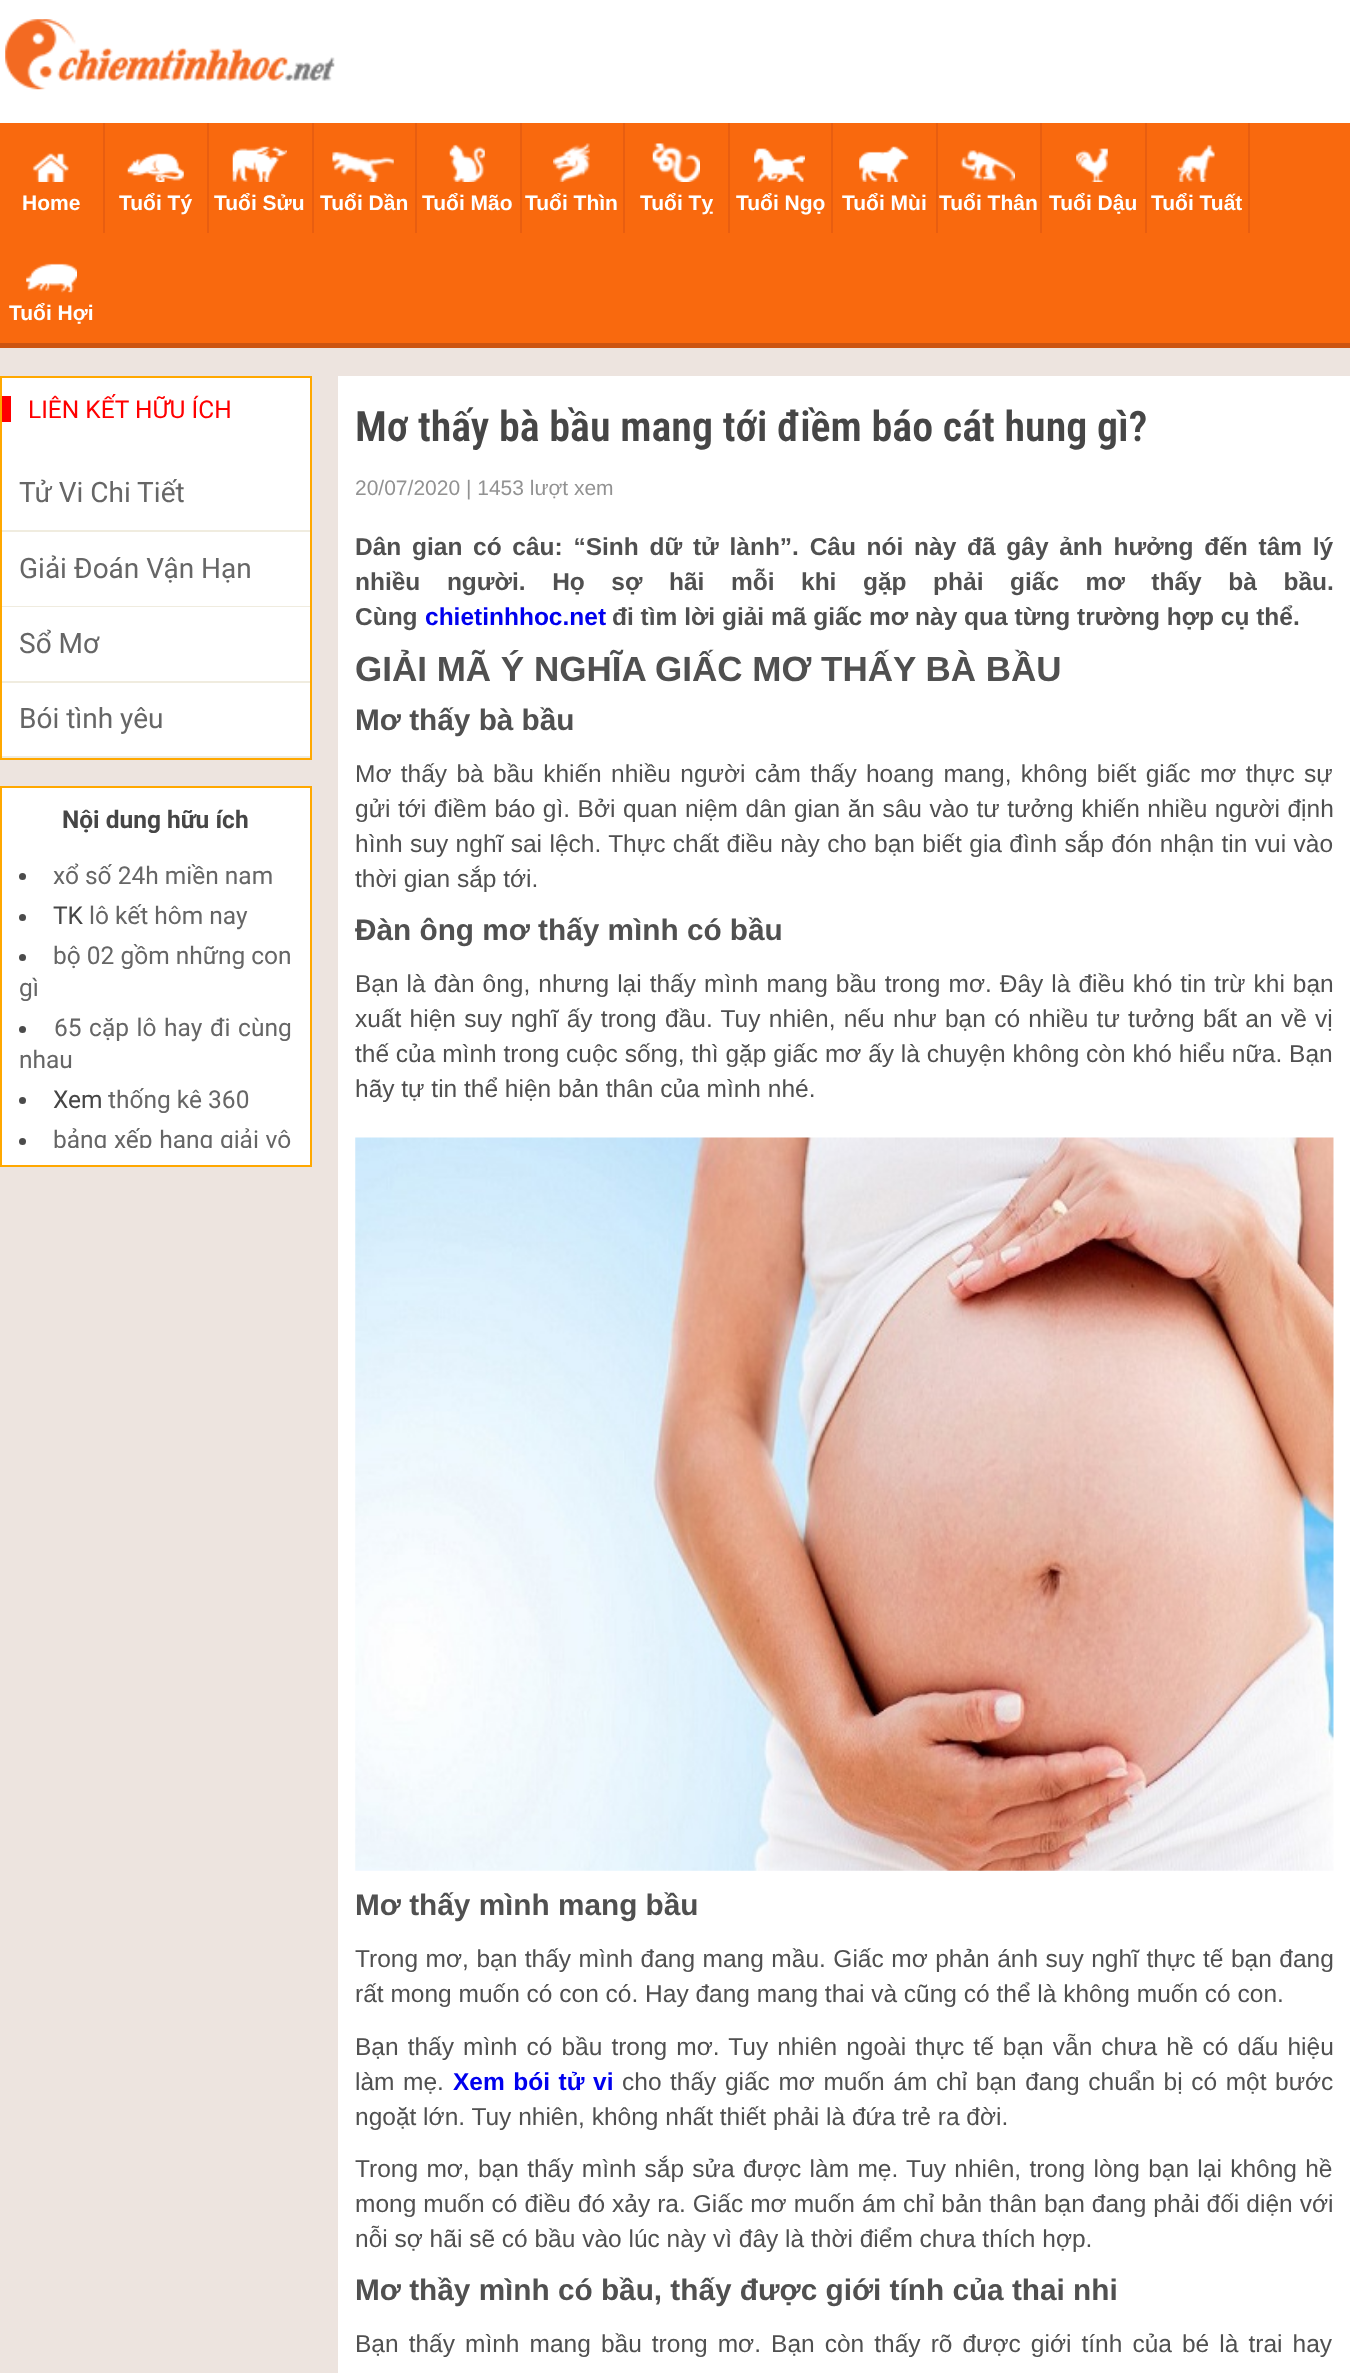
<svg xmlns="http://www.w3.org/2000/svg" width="1350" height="2373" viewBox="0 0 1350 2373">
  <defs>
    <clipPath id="clip1"><path d="M19 851h273v297H19z"/></clipPath>
  </defs>
  <rect width="100%" height="100%" fill="#ede4df"/>
  <path d="M0 0h1350v123H0z" fill="#fff"/>
  <path d="M0 343h1350v5H0z" fill="#cc5411"/>
  <image x="5" y="19" width="330" height="71" href="img/1.png"/>
  <path d="M0 123h1350v220H0z" fill="#f9690e"/>
  <path d="M103 123h2v110H103z" fill="#e85e10"/>
  <image x="32" y="153" width="37" height="29" href="img/2.png"/>
  <path d="M207 123h2v110H207z" fill="#e85e10"/>
  <image x="127" y="153" width="57" height="29" href="img/3.png"/>
  <path d="M312 123h2v110H312z" fill="#e85e10"/>
  <image x="232" y="146" width="55" height="36" href="img/4.png"/>
  <path d="M415 123h2v110H415z" fill="#e85e10"/>
  <image x="332" y="151" width="62" height="31" href="img/5.png"/>
  <path d="M520 123h2v110H520z" fill="#e85e10"/>
  <image x="449" y="144" width="36" height="38" href="img/6.png"/>
  <path d="M623 123h2v110H623z" fill="#e85e10"/>
  <image x="553" y="143" width="37" height="39" href="img/7.png"/>
  <path d="M728 123h2v110H728z" fill="#e85e10"/>
  <image x="652" y="143" width="48" height="39" href="img/8.png"/>
  <path d="M831 123h2v110H831z" fill="#e85e10"/>
  <image x="754" y="148" width="51" height="34" href="img/9.png"/>
  <path d="M936 123h2v110H936z" fill="#e85e10"/>
  <image x="859" y="146" width="50" height="36" href="img/10.png"/>
  <path d="M1040 123h2v110H1040z" fill="#e85e10"/>
  <image x="960" y="150" width="55" height="32" href="img/11.png"/>
  <path d="M1145 123h2v110H1145z" fill="#e85e10"/>
  <image x="1076" y="148" width="32" height="34" href="img/12.png"/>
  <path d="M1248 123h2v110H1248z" fill="#e85e10"/>
  <image x="1177" y="144" width="38" height="38" href="img/13.png"/>
  <image x="26" y="263" width="51" height="30" href="img/14.png"/>
  <path d="M2 378h308v378H2z" fill="#fff"/>
  <path d="M1 377h310v382H1z" fill="none" stroke="#ffa800" stroke-width="2"/>
  <path d="M2 396h9v26H2z" fill="#f00"/>
  <path d="M2 530h308v2H2z" fill="#f0ecdf"/>
  <path d="M2 606h308v1H2z" fill="#f0ecdf"/>
  <path d="M2 681h308v2H2z" fill="#f0ecdf"/>
  <path d="M2 756h308v2H2z" fill="#f0ecdf"/>
  <path d="M1 787h310v379H1z" fill="#fff" stroke="#ffa800" stroke-width="2"/>
  <circle cx="22.5" cy="876.5" r="3.5" fill="#4b4b4b"/>
  <circle cx="22.5" cy="917.5" r="3.5" fill="#4b4b4b"/>
  <circle cx="22.5" cy="957.5" r="3.5" fill="#4b4b4b"/>
  <circle cx="22.5" cy="1029.5" r="3.5" fill="#4b4b4b"/>
  <circle cx="22.5" cy="1100.5" r="3.5" fill="#4b4b4b"/>
  <circle cx="22.5" cy="1141.5" r="3.5" fill="#4b4b4b"/>
  <path d="M338 376h1012v1997H338z" fill="#fff"/>
  <image x="355" y="1137" width="979" height="734" href="img/15.png"/>
  <g font-family="Liberation Sans" font-size="21" font-weight="bold" fill="#fff">
    <text x="22" y="210">Home</text>
    <text x="119" y="210">Tuổi Tý</text>
    <text x="214" y="210">Tuổi Sửu</text>
    <text x="320" y="210">Tuổi Dần</text>
    <text x="422" y="210">Tuổi Mão</text>
    <text x="525" y="210">Tuổi Thìn</text>
    <text x="640" y="210">Tuổi Tỵ</text>
    <text x="736" y="210">Tuổi Ngọ</text>
    <text x="842" y="210">Tuổi Mùi</text>
    <text x="939" y="210">Tuổi Thân</text>
    <text x="1049" y="210">Tuổi Dậu</text>
    <text x="1151" y="210">Tuổi Tuất</text>
    <text x="9" y="320">Tuổi Hợi</text>
  </g>
  <text x="28" y="418" font-family="Roboto" font-size="24.5" fill="#f00">LIÊN KẾT HỮU ÍCH</text>
  <g font-family="Roboto" font-size="28" fill="#666">
    <text x="19" y="502">Tử Vi Chi Tiết</text>
    <text x="19" y="578">Giải Đoán Vận Hạn</text>
    <text x="19" y="653">Sổ Mơ</text>
    <text x="19" y="728">Bói tình yêu</text>
  </g>
  <text x="62" y="828" font-family="Roboto" font-size="24.5" font-weight="bold" fill="#464646">Nội dung hữu ích</text>
  <text x="53" y="884" font-family="Roboto" font-size="24.5" fill="#666">xổ số 24h miền nam</text>
  <text x="53" y="924" font-family="Roboto" font-size="24.5" fill="#464646">TK</text>
  <g font-family="Roboto" font-size="24.5" fill="#666">
    <text x="89" y="924">lô kết hôm nay</text>
    <text x="53" y="964">bộ 02 gồm những con</text>
    <text x="19" y="996">gì</text>
    <text x="54" y="1036" word-spacing="1.5">65 cặp lô hay đi cùng</text>
    <text x="19" y="1068">nhau</text>
  </g>
  <text x="53" y="1108" font-family="Roboto" font-size="24.5" fill="#464646">Xem</text>
  <text x="108" y="1108" font-family="Roboto" font-size="24.5" fill="#666">thống kê 360</text>
  <g clip-path="url(#clip1)">
    <text x="53" y="1148" word-spacing="0.5" font-family="Roboto" font-size="24.5" fill="#666">bảng xếp hạng giải vô</text>
  </g>
  <text x="355" y="441" font-family="Roboto Condensed" font-size="42" font-weight="600" fill="#464646">Mơ thấy bà bầu mang tới điềm báo cát hung gì?</text>
  <text x="355" y="495" font-family="Liberation Sans" font-size="21" fill="#929292">20/07/2020 | 1453 lượt xem</text>
  <g font-family="Liberation Sans" font-size="24.5" font-weight="bold" fill="#505050">
    <text x="355" y="555" word-spacing="3.9">Dân gian có câu: “Sinh dữ tử lành”. Câu nói này đã gây ảnh hưởng đến tâm lý</text>
    <text x="355" y="590" word-spacing="19.75">nhiều người. Họ sợ hãi mỗi khi gặp phải giấc mơ thấy bà bầu.</text>
    <text x="355" y="625">Cùng</text>
  </g>
  <text x="425" y="625" font-family="Liberation Sans" font-size="24.5" font-weight="bold" fill="#00e">chietinhhoc.net</text>
  <text x="612" y="625" font-family="Liberation Sans" font-size="24.5" font-weight="bold" fill="#505050">đi tìm lời giải mã giấc mơ này qua từng trường hợp cụ thể.</text>
  <text x="355" y="681" font-family="Liberation Sans" font-size="35" font-weight="bold" fill="#505050">GIẢI MÃ Ý NGHĨA GIẤC MƠ THẤY BÀ BẦU</text>
  <text x="355" y="730" font-family="Liberation Sans" font-size="29.75" font-weight="bold" fill="#505050">Mơ thấy bà bầu</text>
  <g font-family="Liberation Sans" font-size="24.5" fill="#505050">
    <text x="355" y="782" word-spacing="2.5">Mơ thấy bà bầu khiến nhiều người cảm thấy hoang mang, không biết giấc mơ thực sự</text>
    <text x="355" y="817" word-spacing="0.7">gửi tới điềm báo gì. Bởi quan niệm dân gian ăn sâu vào tư tưởng khiến nhiều người định</text>
    <text x="355" y="852" word-spacing="0.6">hình suy nghĩ sai lệch. Thực chất điều này cho bạn biết gia đình sắp đón nhận tin vui vào</text>
    <text x="355" y="887">thời gian sắp tới.</text>
  </g>
  <text x="355" y="940" font-family="Liberation Sans" font-size="29.75" font-weight="bold" fill="#505050">Đàn ông mơ thấy mình có bầu</text>
  <g font-family="Liberation Sans" font-size="24.5" fill="#505050">
    <text x="355" y="992" word-spacing="1.2">Bạn là đàn ông, nhưng lại thấy mình mang bầu trong mơ. Đây là điều khó tin trừ khi bạn</text>
    <text x="355" y="1027" word-spacing="1.5">xuất hiện suy nghĩ ấy trong đầu. Tuy nhiên, nếu như bạn có nhiều tư tưởng bất an về vị</text>
    <text x="355" y="1062">thế của mình trong cuộc sống, thì gặp giấc mơ ấy là chuyện không còn khó hiểu nữa. Bạn</text>
    <text x="355" y="1097">hãy tự tin thể hiện bản thân của mình nhé.</text>
  </g>
  <text x="355" y="1915" font-family="Liberation Sans" font-size="29.75" font-weight="bold" fill="#505050">Mơ thấy mình mang bầu</text>
  <g font-family="Liberation Sans" font-size="24.5" fill="#505050">
    <text x="355" y="1967" word-spacing="0.7">Trong mơ, bạn thấy mình đang mang mầu. Giấc mơ phản ánh suy nghĩ thực tế bạn đang</text>
    <text x="355" y="2002">rất mong muốn có con có. Hay đang mang thai và cũng có thể là không muốn có con.</text>
    <text x="355" y="2055" word-spacing="2.25">Bạn thấy mình có bầu trong mơ. Tuy nhiên ngoài thực tế bạn vẫn chưa hề có dấu hiệu</text>
    <text x="355" y="2090" word-spacing="1.75">làm mẹ.</text>
  </g>
  <text x="453" y="2090" word-spacing="1.75" font-family="Liberation Sans" font-size="24.5" font-weight="bold" fill="#00e">Xem bói tử vi</text>
  <g font-family="Liberation Sans" font-size="24.5" fill="#505050">
    <text x="622" y="2090" word-spacing="1.75">cho thấy giấc mơ muốn ám chỉ bạn đang chuẩn bị có một bước</text>
    <text x="355" y="2125">ngoặt lớn. Tuy nhiên, không nhất thiết phải là đứa trẻ ra đời.</text>
    <text x="355" y="2177" word-spacing="1.5">Trong mơ, bạn thấy mình sắp sửa được làm mẹ. Tuy nhiên, trong lòng bạn lại không hề</text>
    <text x="355" y="2212" word-spacing="0.2">mong muốn có điều đó xảy ra. Giấc mơ muốn ám chỉ bản thân bạn đang phải đối diện với</text>
    <text x="355" y="2247">nỗi sợ hãi sẽ có bầu vào lúc này vì đây là thời điểm chưa thích hợp.</text>
  </g>
  <text x="355" y="2300" font-family="Liberation Sans" font-size="29.75" font-weight="bold" fill="#505050">Mơ thầy mình có bầu, thấy được giới tính của thai nhi</text>
  <text x="355" y="2352" word-spacing="3.25" font-family="Liberation Sans" font-size="24.5" fill="#505050">Bạn thấy mình mang bầu trong mơ. Bạn còn thấy rõ được giới tính của bé là trai hay</text>
</svg>
